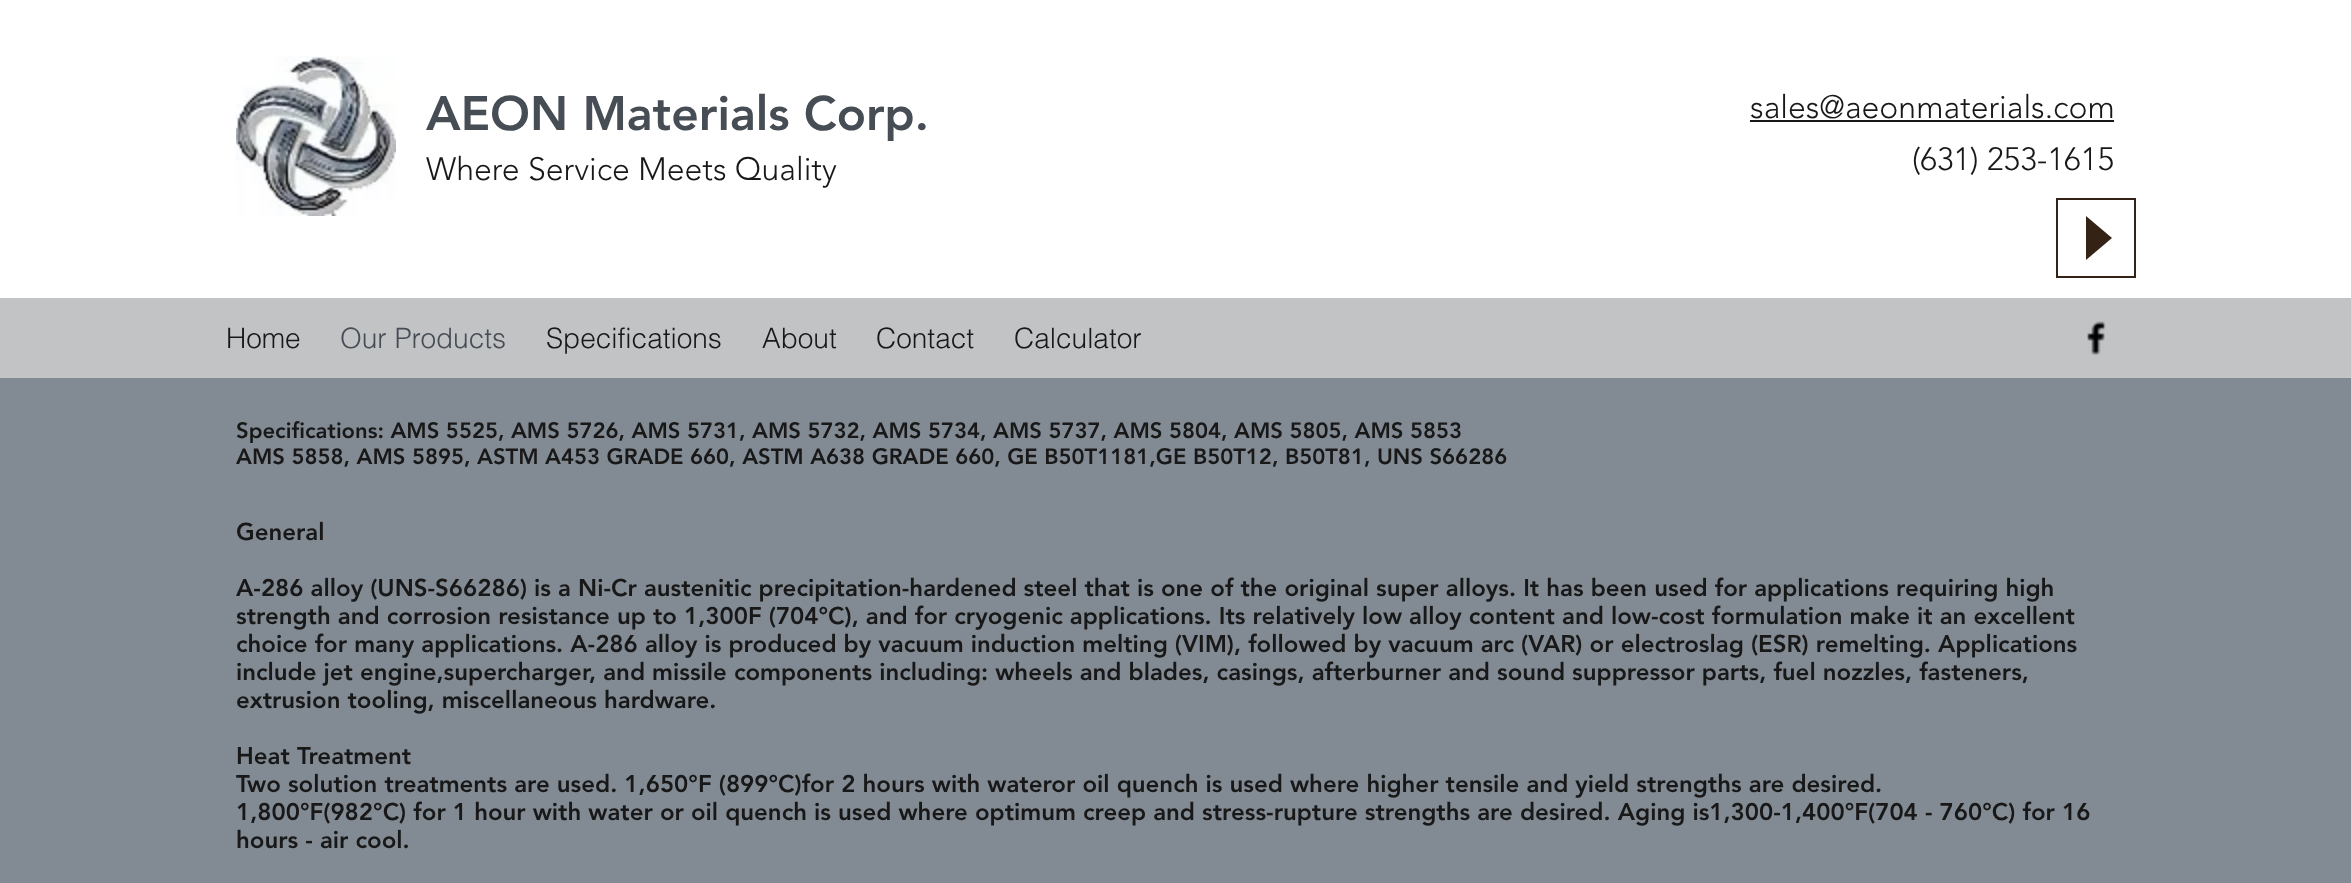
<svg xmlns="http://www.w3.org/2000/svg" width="2351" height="883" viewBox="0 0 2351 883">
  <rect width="100%" height="100%" fill="#828a93"/>
  <path d="M0 0h2351v298H0z" fill="#fff"/>
  <image x="236" y="56" width="160" height="160" href="img/1.png"/>
  <path d="M1750 120h364v2H1750z" fill="#181818"/>
  <path d="M2057 199h78v78H2057z" fill="none" stroke="#342216" stroke-width="2"/>
  <path d="M2086 260V216L2112 238Z" fill="#342216"/>
  <path d="M0 298h2351v80H0z" fill="#c1c3c5"/>
  <image x="2087" y="321" width="19" height="34" href="img/2.png"/>
  <text x="426" y="130" font-family="'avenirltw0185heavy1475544'" font-size="48" font-weight="900" fill="#474d55">AEON Materials Corp.</text>
  <g font-family="'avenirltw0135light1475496'" font-size="32" font-weight="300" fill="#181818">
    <text x="1750" y="118">sales@aeonmaterials.com</text>
    <text x="426" y="180">Where Service Meets Quality</text>
    <text x="1912" y="170">(631) 253-1615</text>
  </g>
  <text x="226" y="348" font-family="helvetica" font-size="28" font-weight="300" fill="#181818">Home</text>
  <text x="340" y="348" font-family="helvetica" font-size="28" font-weight="300" fill="#474d55">Our Products</text>
  <g font-family="helvetica" font-size="28" font-weight="300" fill="#181818">
    <text x="546" y="348">Specifications</text>
    <text x="762" y="348">About</text>
    <text x="876" y="348">Contact</text>
    <text x="1014" y="348">Calculator</text>
  </g>
  <g font-family="'avenirltw0185heavy1475544'" font-size="22" font-weight="900" fill="#181818">
    <text x="236" y="438">Specifications: AMS 5525, AMS 5726, AMS 5731, AMS 5732, AMS 5734, AMS 5737, AMS 5804, AMS 5805, AMS 5853</text>
    <text x="236" y="464">AMS 5858, AMS 5895, ASTM A453 GRADE 660, ASTM A638 GRADE 660, GE B50T1181,GE B50T12, B50T81, UNS S66286</text>
  </g>
  <g font-family="'avenirltw0185heavy1475544'" font-size="24" font-weight="900" fill="#181818">
    <text x="236" y="540">General</text>
    <text x="236" y="596">A-286 alloy (UNS-S66286) is a Ni-Cr austenitic precipitation-hardened steel that is one of the original super alloys. It has been used for applications requiring high</text>
    <text x="236" y="624">strength and corrosion resistance up to 1,300F (704°C), and for cryogenic applications. Its relatively low alloy content and low-cost formulation make it an excellent</text>
    <text x="236" y="652">choice for many applications. A-286 alloy is produced by vacuum induction melting (VIM), followed by vacuum arc (VAR) or electroslag (ESR) remelting. Applications</text>
    <text x="236" y="680">include jet engine,supercharger, and missile components including: wheels and blades, casings, afterburner and sound suppressor parts, fuel nozzles, fasteners,</text>
    <text x="236" y="708">extrusion tooling, miscellaneous hardware.</text>
    <text x="236" y="764">Heat Treatment</text>
    <text x="236" y="792">Two solution treatments are used. 1,650°F (899°C)for 2 hours with wateror oil quench is used where higher tensile and yield strengths are desired.</text>
    <text x="236" y="820">1,800°F(982°C) for 1 hour with water or oil quench is used where optimum creep and stress-rupture strengths are desired. Aging is1,300-1,400°F(704 - 760°C) for 16</text>
    <text x="236" y="848">hours - air cool.</text>
  </g>
</svg>
